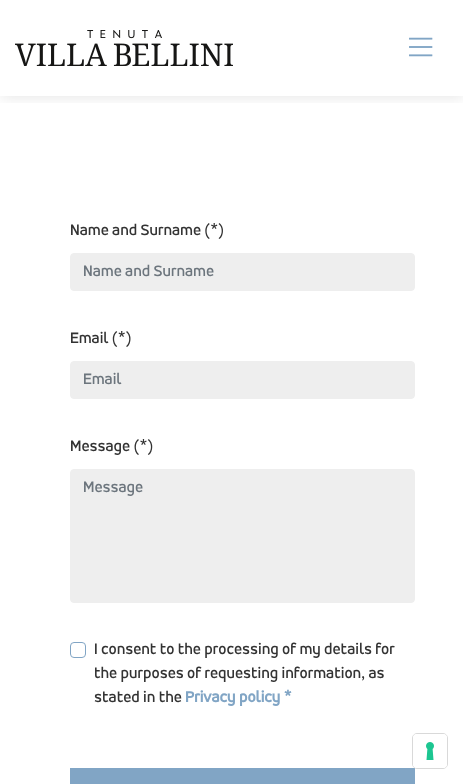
<svg xmlns="http://www.w3.org/2000/svg" width="463" height="784" viewBox="0 0 463 784">
  <defs>
    <clipPath id="clip1"><path d="M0 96h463v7H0z"/></clipPath>
  </defs>
  <rect width="100%" height="100%" fill="#fff"/>
  <g clip-path="url(#clip1)">
    <path d="M1 1h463v96H1z" fill="#0000001a" filter="blur(7.5px)"/>
  </g>
  <image x="15" y="30" width="218" height="36" href="img/1.png"/>
  <image x="409" y="37" width="24" height="20" href="img/2.png"/>
  <rect x="70.5" y="253.5" width="344" height="37" rx="3.5" fill="#eee" stroke="#eee"/>
  <rect x="70.5" y="361.5" width="344" height="37" rx="3.5" fill="#eee" stroke="#eee"/>
  <rect x="70.5" y="469.5" width="344" height="133" rx="3.5" fill="#eee" stroke="#eee"/>
  <rect x="70.5" y="642.5" width="15" height="15" rx="3.5" fill="none" stroke="#81a5c5"/>
  <path d="M70 768h345v16H70z" fill="#81a5c5"/>
  <rect x="412.5" y="733.5" width="35" height="35" rx="4.5" fill="none" stroke="#d9d9d9"/>
  <rect x="413" y="734" width="34" height="34" rx="4" fill="#fff"/>
  <image x="426" y="742" width="8" height="18" href="img/3.png"/>
  <text x="70" y="235" font-family="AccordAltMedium" font-size="16" font-weight="500" fill="#333">Name and Surname (*)</text>
  <text x="83" y="276" font-family="AccordAltMedium" font-size="16" font-weight="500" fill="#6c757d">Name and Surname</text>
  <text x="70" y="343" font-family="AccordAltMedium" font-size="16" font-weight="500" fill="#333">Email (*)</text>
  <text x="83" y="384" font-family="AccordAltMedium" font-size="16" font-weight="500" fill="#6c757d">Email</text>
  <text x="70" y="451" font-family="AccordAltMedium" font-size="16" font-weight="500" fill="#333">Message (*)</text>
  <text x="83" y="492" font-family="AccordAltMedium" font-size="16" font-weight="500" fill="#6c757d">Message</text>
  <g font-family="AccordAltMedium" font-size="16" font-weight="500" fill="#333">
    <text x="94" y="654">I consent to the processing of my details for</text>
    <text x="94" y="678">the purposes of requesting information, as</text>
    <text x="94" y="702">stated in the</text>
  </g>
  <text x="185" y="702" font-family="AccordAltMedium" font-size="16" font-weight="bold" fill="#81a5c5">Privacy policy *</text>
</svg>
